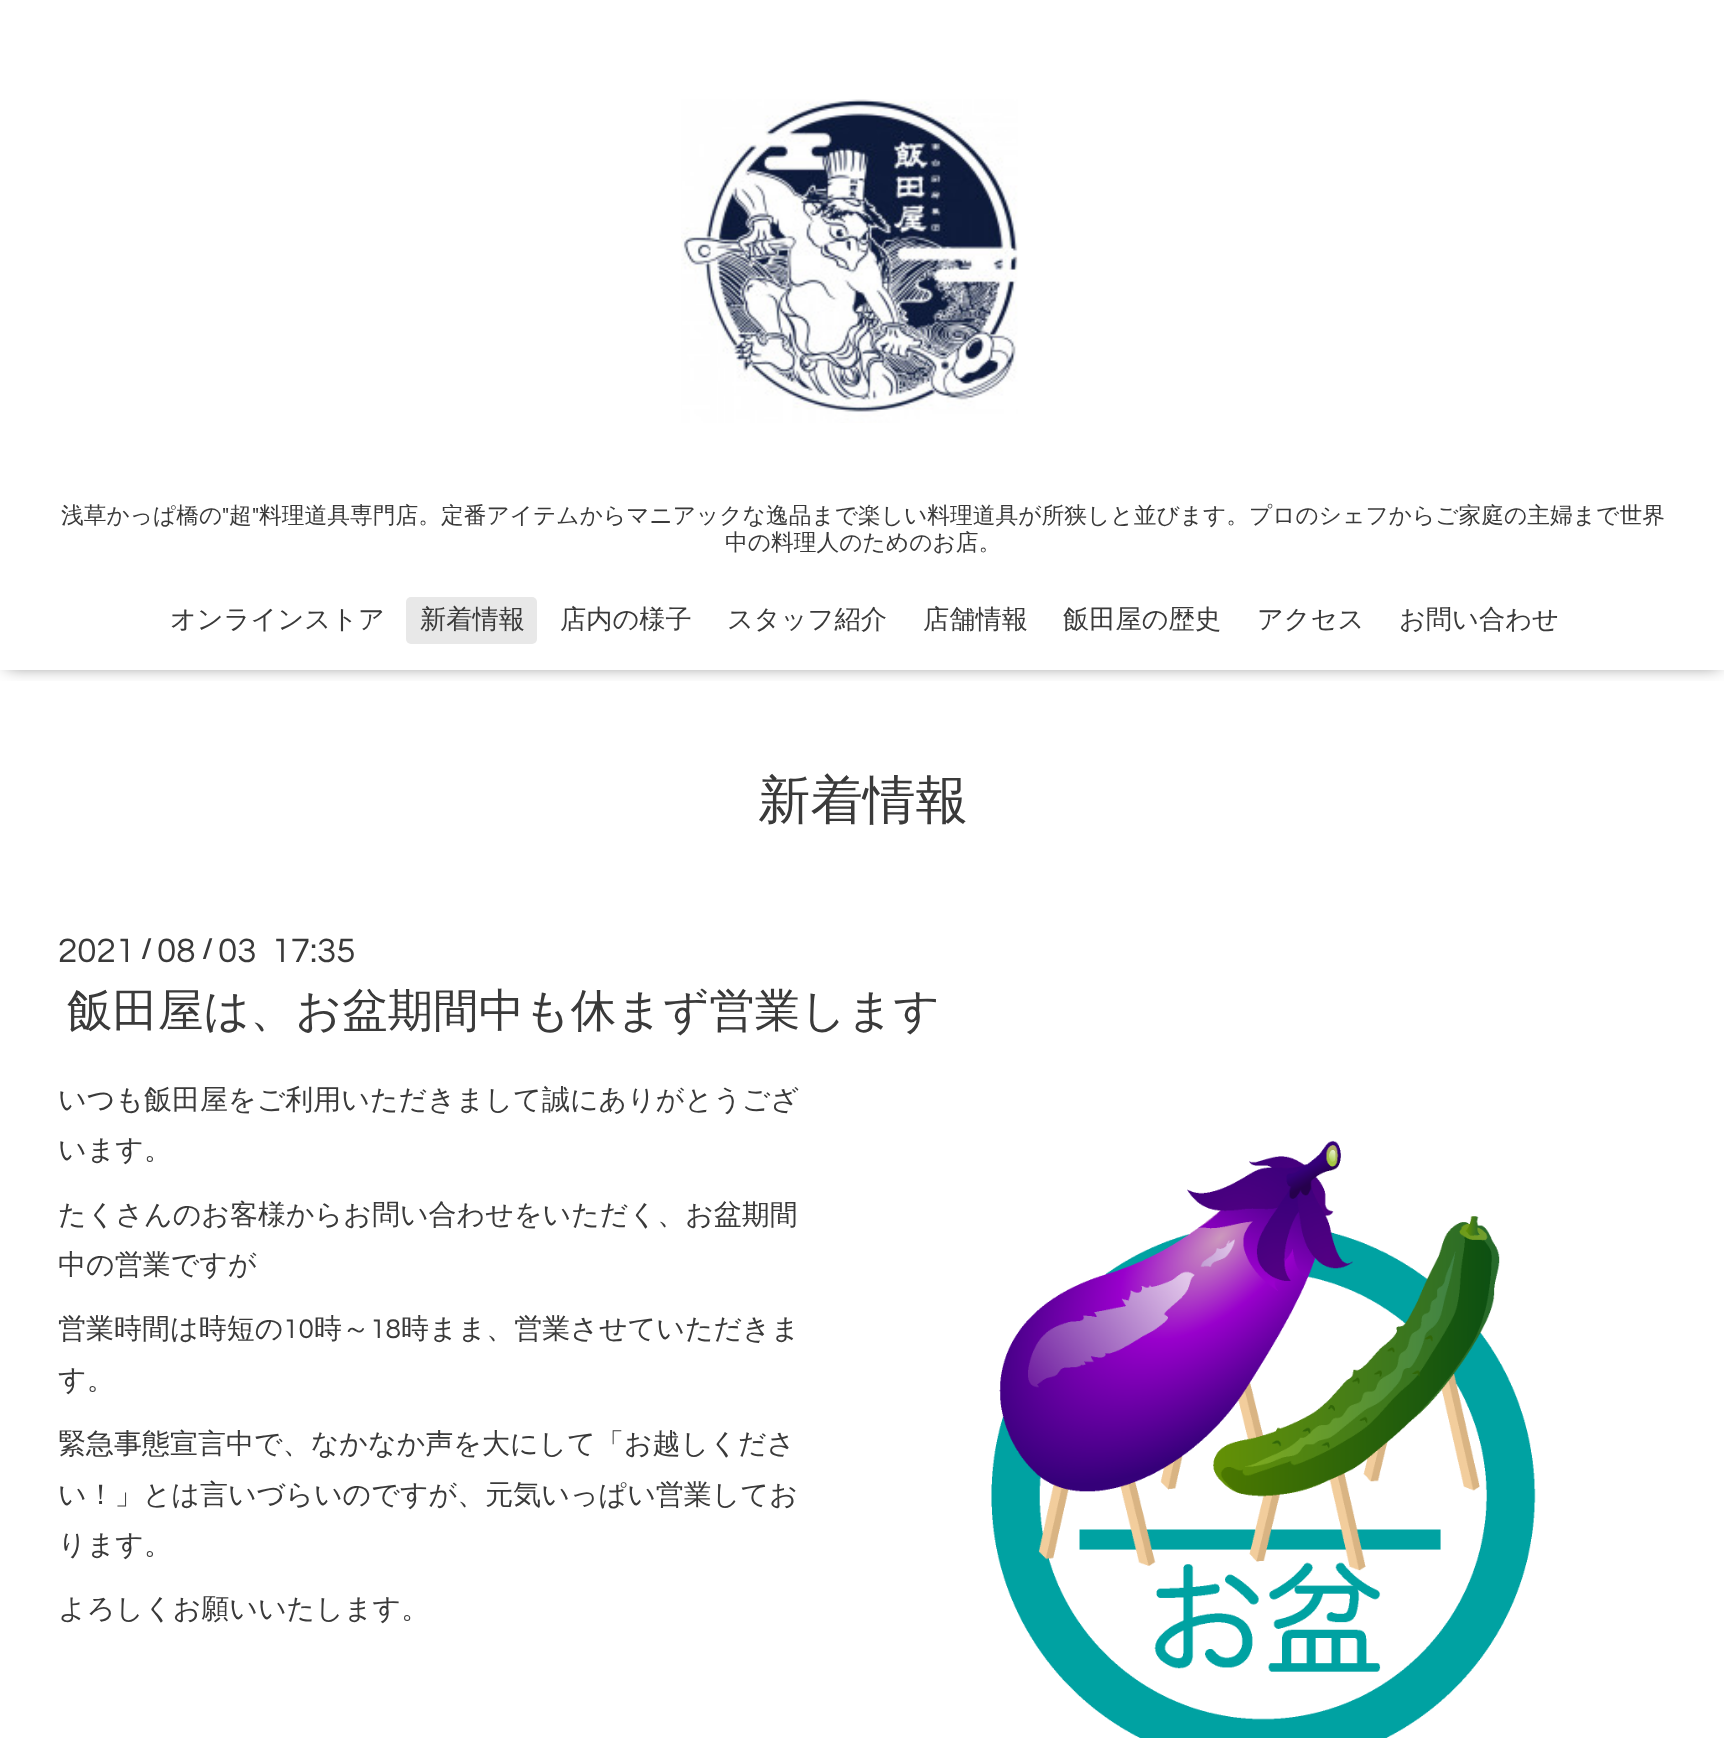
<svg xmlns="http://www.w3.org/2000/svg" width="1724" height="1738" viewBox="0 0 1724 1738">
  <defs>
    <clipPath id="clip1"><path d="M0 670h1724v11H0z"/></clipPath>
  </defs>
  <rect width="100%" height="100%" fill="#fff"/>
  <g clip-path="url(#clip1)">
    <path d="M7 9h1712v656H7z" fill="#00000099" filter="blur(9px)"/>
  </g>
  <image x="681" y="99" width="337" height="324" href="img/1.png"/>
  <rect x="406" y="597" width="131" height="47" rx="5" fill="#e8e8e8"/>
  <image x="991" y="1140" width="545" height="598" href="img/2.png"/>
  <text x="61" y="523" font-family="WenQuanYi Zen Hei" font-size="22.75" font-weight="500" fill="#3a3a3a">浅草かっぱ橋の</text>
  <text x="222" y="523" font-family="Questrial" font-size="22.75" fill="#3a3a3a">"</text>
  <text x="229" y="523" font-family="WenQuanYi Zen Hei" font-size="22.75" font-weight="500" fill="#3a3a3a">超</text>
  <text x="252" y="523" font-family="Questrial" font-size="22.75" fill="#3a3a3a">"</text>
  <g font-family="WenQuanYi Zen Hei" font-size="22.75" font-weight="500" fill="#3a3a3a">
    <text x="259" y="523">料理道具専門店。定番アイテムからマニアックな逸品まで楽しい料理道具が所狭しと並びます。プロのシェフからご家庭の主婦まで世界</text>
    <text x="725" y="550">中の料理人のためのお店。</text>
  </g>
  <g font-family="WenQuanYi Zen Hei" font-size="26.25" font-weight="500" fill="#3a3a3a">
    <text x="170" y="628">オンラインストア</text>
    <text x="420" y="628">新着情報</text>
    <text x="560" y="628">店内の様子</text>
    <text x="727" y="628">スタッフ紹介</text>
    <text x="923" y="628">店舗情報</text>
    <text x="1063" y="628">飯田屋の歴史</text>
    <text x="1257" y="628">アクセス</text>
    <text x="1399" y="628">お問い合わせ</text>
  </g>
  <text x="758" y="818" font-family="WenQuanYi Zen Hei" font-size="52.5" font-weight="500" fill="#3a3a3a">新着情報</text>
  <text x="58" y="962" font-family="Questrial" font-size="35" fill="#3a3a3a">2021</text>
  <text x="141" y="958" font-family="Questrial" font-size="28" font-weight="bold" fill="#3a3a3a">/</text>
  <text x="157" y="962" font-family="Questrial" font-size="35" fill="#3a3a3a">08</text>
  <text x="202" y="958" font-family="Questrial" font-size="28" font-weight="bold" fill="#3a3a3a">/</text>
  <text x="218" y="962" font-family="Questrial" font-size="35" fill="#3a3a3a" xml:space="preserve">03  17:35</text>
  <text x="67" y="1026" font-family="WenQuanYi Zen Hei" font-size="45.5" font-weight="500" fill="#3a3a3a">飯田屋は、お盆期間中も休まず営業します</text>
  <g font-family="WenQuanYi Zen Hei" font-size="28" font-weight="500" fill="#3a3a3a">
    <text x="58" y="1109">いつも飯田屋をご利用いただきまして誠にありがとうござ</text>
    <text x="58" y="1159">います。</text>
    <text x="58" y="1224">たくさんのお客様からお問い合わせをいただく、お盆期間</text>
    <text x="58" y="1274">中の営業ですが</text>
    <text x="58" y="1338">営業時間は時短の</text>
  </g>
  <text x="283" y="1338" font-family="Questrial" font-size="28" fill="#3a3a3a">10</text>
  <text x="314" y="1338" font-family="WenQuanYi Zen Hei" font-size="28" font-weight="500" fill="#3a3a3a">時～</text>
  <text x="370" y="1338" font-family="Questrial" font-size="28" fill="#3a3a3a">18</text>
  <g font-family="WenQuanYi Zen Hei" font-size="28" font-weight="500" fill="#3a3a3a">
    <text x="401" y="1338">時まま、営業させていただきま</text>
    <text x="58" y="1389">す。</text>
    <text x="58" y="1453">緊急事態宣言中で、なかなか声を大にして「お越しくださ</text>
    <text x="58" y="1504">い！」とは言いづらいのですが、元気いっぱい営業してお</text>
    <text x="58" y="1554">ります。</text>
    <text x="58" y="1618">よろしくお願いいたします。</text>
  </g>
</svg>
